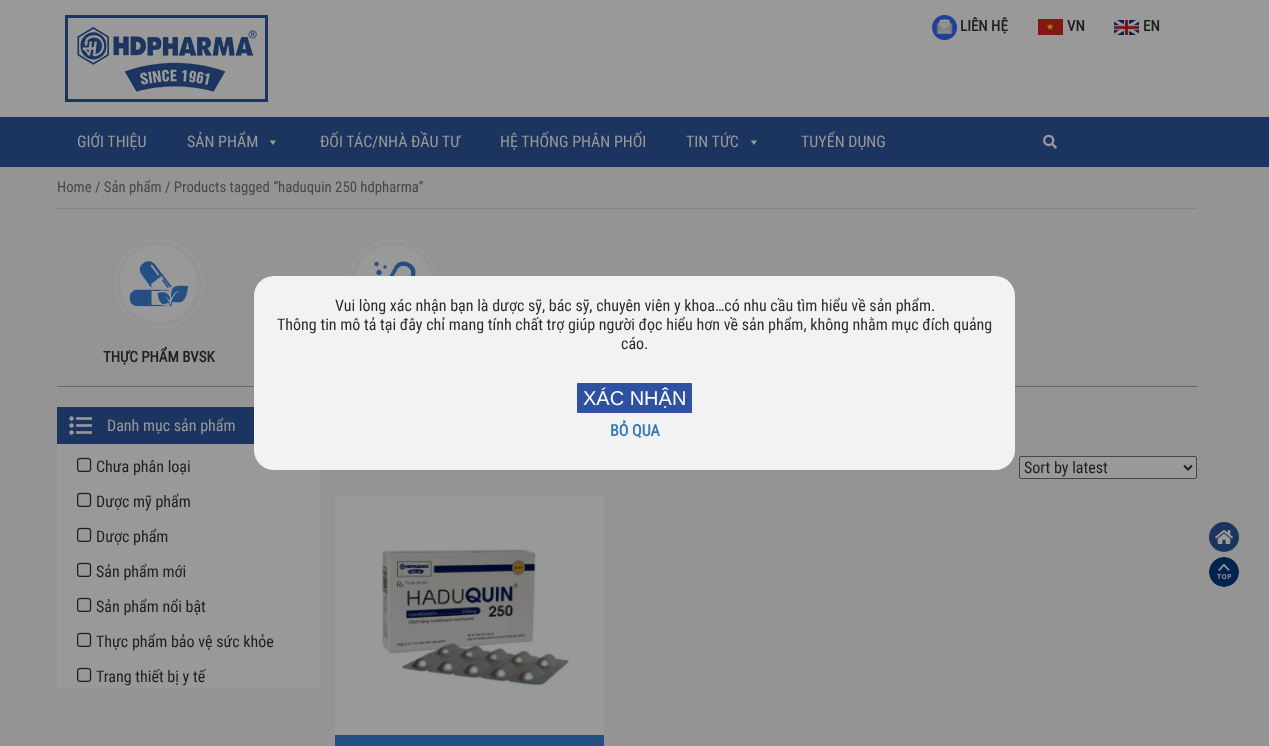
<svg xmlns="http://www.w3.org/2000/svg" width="1269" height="746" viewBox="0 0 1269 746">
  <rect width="100%" height="100%" fill="#999"/>
  <image x="65" y="15" width="203" height="87" href="img/1.png"/>
  <image x="932" y="15" width="25" height="25" href="img/2.png"/>
  <image x="1038" y="19" width="25" height="16" href="img/3.png"/>
  <image x="1114" y="20" width="25" height="15" href="img/4.png"/>
  <path d="M0 117h1269v50H0z" fill="#1c3560"/>
  <path d="M276 140.5L273 145L269.5 140.5Z" fill="#999"/>
  <path d="M757 140.5L754 145L750.5 140.5Z" fill="#999"/>
  <image x="1043" y="134" width="14" height="15" href="img/5.png"/>
  <path d="M0 167h1269v579H0z" fill="#949494"/>
  <path d="M57 208h1140v1H57z" fill="#858585"/>
  <path d="M57 386h1140v1H57z" fill="#666"/>
  <circle cx="393" cy="284" r="44" fill="none" stroke="#999" stroke-width="2"/>
  <circle cx="392.5" cy="283.5" r="38.5" fill="#999"/>
  <image x="374" y="261" width="42" height="15" href="img/6.png"/>
  <circle cx="159" cy="284" r="44" fill="none" stroke="#999" stroke-width="2"/>
  <circle cx="158.5" cy="283.5" r="38.5" fill="#999"/>
  <image x="129" y="261" width="60" height="46" href="img/7.png"/>
  <path d="M57 444h263v245H57z" fill="#999"/>
  <path d="M57 407h197v37H57z" fill="#1c3560"/>
  <image x="69" y="416" width="23" height="19" href="img/8.png"/>
  <image x="77" y="457" width="15" height="15" href="img/9.png"/>
  <image x="77" y="492" width="15" height="15" href="img/9.png"/>
  <image x="77" y="527" width="15" height="15" href="img/9.png"/>
  <image x="77" y="562" width="15" height="15" href="img/9.png"/>
  <image x="77" y="597" width="15" height="15" href="img/9.png"/>
  <image x="77" y="632" width="15" height="15" href="img/9.png"/>
  <image x="77" y="667" width="15" height="15" href="img/9.png"/>
  <rect x="1019.5" y="456.5" width="177" height="22" rx="1.5" fill="#999" stroke="#474747"/>
  <path d="M1184 465.5L1188 469.5L1192 465.5" fill="none" stroke="#1f1f1f" stroke-width="2"/>
  <path d="M335 495h269v240H335z" fill="#999"/>
  <image x="380" y="549" width="189" height="138" href="img/10.png"/>
  <path d="M335 735h269v11H335z" fill="#234f85"/>
  <rect x="254" y="276" width="761" height="194" rx="20" fill="#f2f2f2"/>
  <rect x="577" y="383" width="115" height="30" rx="1" fill="#2e51a2"/>
  <circle cx="1224" cy="537" r="15" fill="#1c3560"/>
  <image x="1215" y="530" width="18" height="14" href="img/11.png"/>
  <circle cx="1224" cy="572" r="15" fill="#999"/>
  <image x="1209" y="557" width="30" height="30" href="img/12.png"/>
  <g font-family="Roboto Condensed" font-size="15" font-weight="bold" fill="#1f1f1f">
    <text x="960" y="31">LIÊN HỆ</text>
    <text x="1067" y="31">VN</text>
    <text x="1143" y="31">EN</text>
  </g>
  <g font-family="Roboto Condensed" font-size="16" fill="#999">
    <text x="77" y="147">GIỚI THIỆU</text>
    <text x="187" y="147">SẢN PHẨM</text>
    <text x="320" y="147">ĐỐI TÁC/NHÀ ĐẦU TƯ</text>
    <text x="500" y="147">HỆ THỐNG PHÂN PHỐI</text>
    <text x="686" y="147">TIN TỨC</text>
    <text x="801" y="147">TUYỂN DỤNG</text>
  </g>
  <text x="57" y="192" font-family="Roboto Condensed" font-size="14.75" fill="#474747">Home / Sản phẩm / Products tagged “haduquin 250 hdpharma”</text>
  <text x="103" y="362" font-family="Roboto Condensed" font-size="15" font-weight="bold" fill="#1f1f1f">THỰC PHẨM BVSK</text>
  <text x="107" y="431" font-family="Roboto Condensed" font-size="16" fill="#999">Danh mục sản phẩm</text>
  <g font-family="Roboto Condensed" font-size="16" fill="#1f1f1f">
    <text x="96" y="472">Chưa phân loại</text>
    <text x="96" y="507">Dược mỹ phẩm</text>
    <text x="96" y="542">Dược phẩm</text>
    <text x="96" y="577">Sản phẩm mới</text>
    <text x="96" y="612">Sản phẩm nổi bật</text>
    <text x="96" y="647">Thực phẩm bảo vệ sức khỏe</text>
    <text x="96" y="682">Trang thiết bị y tế</text>
    <text x="1024" y="473">Sort by latest</text>
  </g>
  <g font-family="Roboto Condensed" font-size="16" fill="#2d2d2d">
    <text x="335" y="311">Vui lòng xác nhận bạn là dược sỹ, bác sỹ, chuyên viên y khoa…có nhu cầu tìm hiểu về sản phẩm.</text>
    <text x="277" y="330">Thông tin mô tả tại đây chỉ mang tính chất trợ giúp người đọc hiểu hơn về sản phẩm, không nhằm mục đích quảng</text>
    <text x="621" y="349">cáo.</text>
  </g>
  <text x="610" y="436" font-family="Roboto Condensed" font-size="16" font-weight="bold" fill="#337ab7">BỎ QUA</text>
  <text x="583" y="405" font-family="Liberation Sans" font-size="20" fill="#fff">XÁC NHẬN</text>
</svg>
